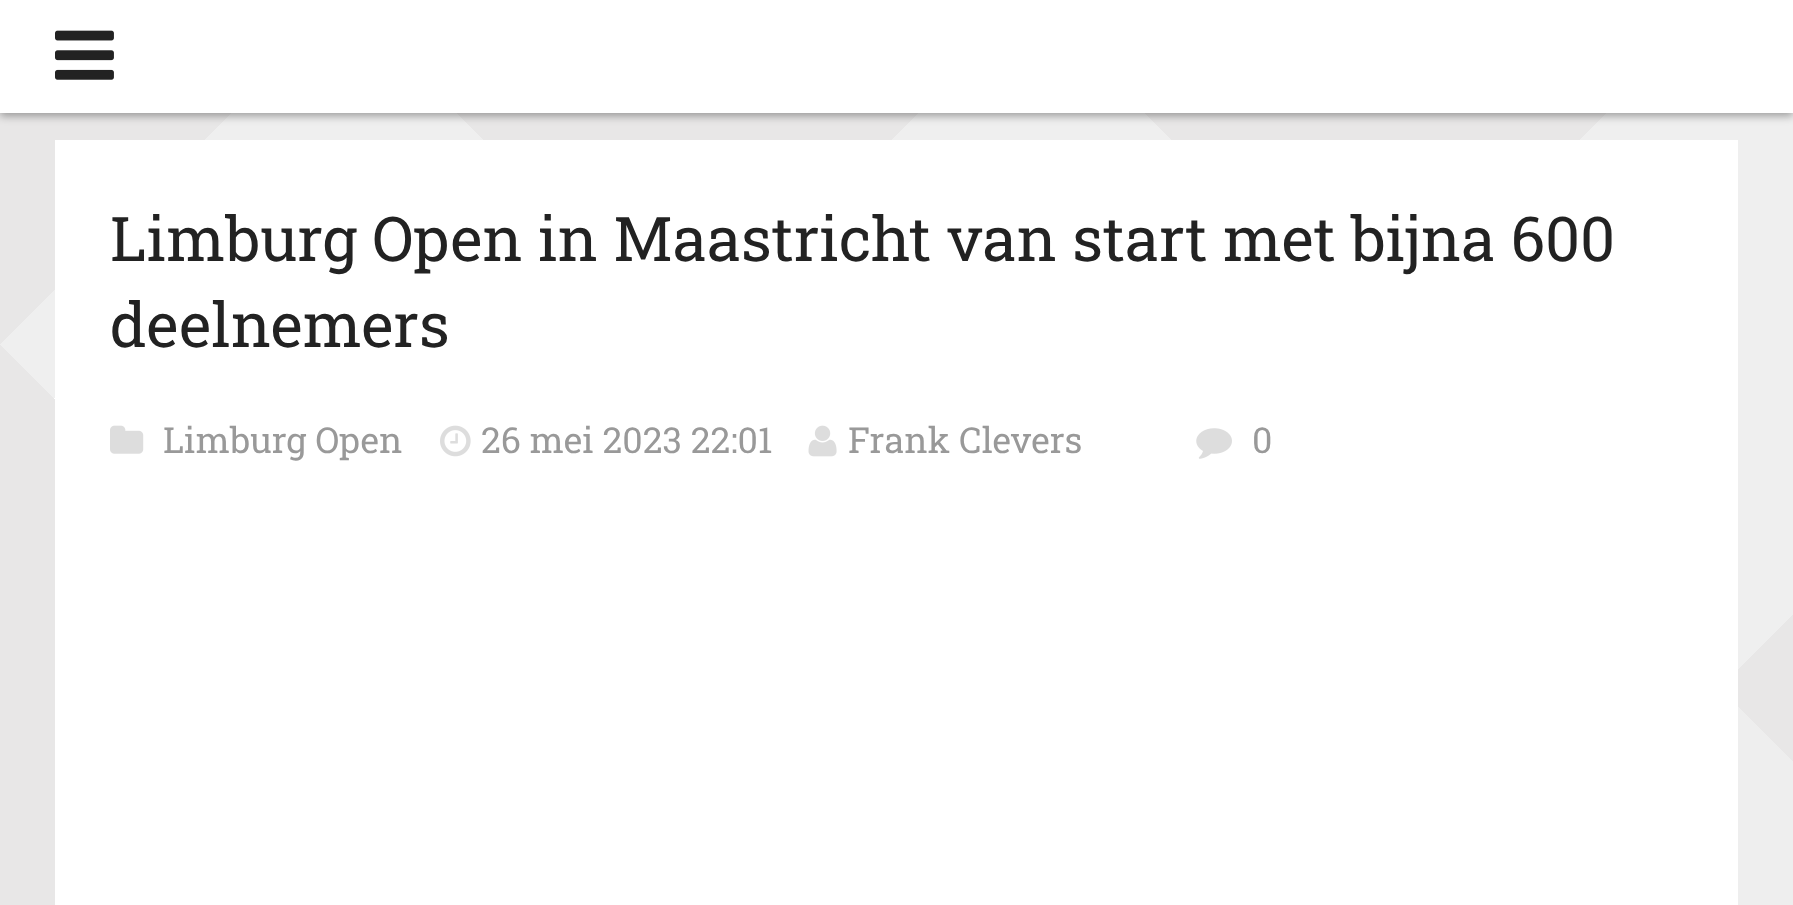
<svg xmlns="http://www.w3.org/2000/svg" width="1793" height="905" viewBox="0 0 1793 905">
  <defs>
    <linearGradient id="g1" gradientUnits="userSpaceOnUse" x1="688" y1="688" x2="0" y2="0"><stop offset="0.25" stop-color="#e8e7e7"/><stop offset="0.25" stop-color="#efefef"/><stop offset="0.75" stop-color="#efefef"/><stop offset="0.75" stop-color="#e8e7e7"/><stop offset="1" stop-color="#e8e7e7"/></linearGradient>
    <linearGradient id="g2" gradientUnits="userSpaceOnUse" x1="1375" y1="688" x2="688" y2="0"><stop offset="0.25" stop-color="#e8e7e7"/><stop offset="0.25" stop-color="#efefef"/><stop offset="0.75" stop-color="#efefef"/><stop offset="0.75" stop-color="#e8e7e7"/><stop offset="1" stop-color="#e8e7e7"/></linearGradient>
    <linearGradient id="g3" gradientUnits="userSpaceOnUse" x1="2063" y1="688" x2="1375" y2="0"><stop offset="0.25" stop-color="#e8e7e7"/><stop offset="0.25" stop-color="#efefef"/><stop offset="0.75" stop-color="#efefef"/><stop offset="0.75" stop-color="#e8e7e7"/><stop offset="1" stop-color="#e8e7e7"/></linearGradient>
    <linearGradient id="g4" gradientUnits="userSpaceOnUse" x1="688" y1="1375" x2="0" y2="688"><stop offset="0.25" stop-color="#e8e7e7"/><stop offset="0.25" stop-color="#eee"/><stop offset="0.75" stop-color="#eee"/><stop offset="0.75" stop-color="#e8e7e7"/><stop offset="1" stop-color="#e8e7e7"/></linearGradient>
    <linearGradient id="g5" gradientUnits="userSpaceOnUse" x1="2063" y1="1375" x2="1375" y2="688"><stop offset="0.25" stop-color="#e8e7e7"/><stop offset="0.25" stop-color="#eee"/><stop offset="0.75" stop-color="#eee"/><stop offset="0.75" stop-color="#e8e7e7"/><stop offset="1" stop-color="#e8e7e7"/></linearGradient>
    <linearGradient id="g6" gradientUnits="userSpaceOnUse" x1="0" y1="688" x2="688" y2="0"><stop offset="0.25" stop-color="#e8e7e7"/><stop offset="0.25" stop-color="#e8e7e7" stop-opacity="0"/><stop offset="0.75" stop-color="#e8e7e7" stop-opacity="0"/><stop offset="0.75" stop-color="#e8e7e7"/><stop offset="1" stop-color="#e8e7e7"/></linearGradient>
    <linearGradient id="g7" gradientUnits="userSpaceOnUse" x1="688" y1="688" x2="1375" y2="0"><stop offset="0.25" stop-color="#e8e7e7"/><stop offset="0.25" stop-color="#e8e7e7" stop-opacity="0"/><stop offset="0.75" stop-color="#e8e7e7" stop-opacity="0"/><stop offset="0.75" stop-color="#e8e7e7"/><stop offset="1" stop-color="#e8e7e7"/></linearGradient>
    <linearGradient id="g8" gradientUnits="userSpaceOnUse" x1="1375" y1="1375" x2="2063" y2="688"><stop offset="0.25" stop-color="#e8e7e7"/><stop offset="0.25" stop-color="#e8e7e7" stop-opacity="0"/><stop offset="0.75" stop-color="#e8e7e7" stop-opacity="0"/><stop offset="0.75" stop-color="#e8e7e7"/><stop offset="1" stop-color="#e8e7e7"/></linearGradient>
  </defs>
  <rect width="100%" height="100%" fill="#fff"/>
  <path d="M0 113h484v285H0z" fill="url(#g1)"/>
  <path d="M688 113h483v27H688z" fill="url(#g2)"/>
  <path d="M1375 113h418v575H1375z" fill="url(#g3)"/>
  <path d="M0 688h55v217H0z" fill="url(#g4)"/>
  <path d="M1738 707h55v198H1738z" fill="url(#g5)"/>
  <path d="M0 113h688v575H0z" fill="url(#g6)"/>
  <path d="M1145 113h230v27H1145z" fill="url(#g7)"/>
  <path d="M1738 688h55v73H1738z" fill="url(#g8)"/>
  <path d="M0 3h1793v113H0z" fill="#00000059" filter="blur(4px)"/>
  <path d="M0 0h1793v113H0z" fill="#fff"/>
  <image x="55" y="30" width="59" height="50" href="img/1.png"/>
  <path d="M55 140h1683v548H55z" fill="#fff"/>
  <image x="110" y="425" width="34" height="29" href="img/2.png"/>
  <image x="440" y="425" width="31" height="32" href="img/3.png"/>
  <image x="808" y="425" width="29" height="32" href="img/4.png"/>
  <image x="1196" y="428" width="36" height="31" href="img/5.png"/>
  <g font-family="Roboto Slab" font-size="61.6" fill="#222">
    <text x="110" y="261">Limburg Open in Maastricht van start met bijna 600</text>
    <text x="110" y="347">deelnemers</text>
  </g>
  <g font-family="Roboto Slab" font-size="35.75" fill="#999">
    <text x="163" y="453">Limburg Open</text>
    <text x="481" y="453">26 mei 2023 22:01</text>
    <text x="848" y="453">Frank Clevers</text>
    <text x="1252" y="453">0</text>
  </g>
</svg>
